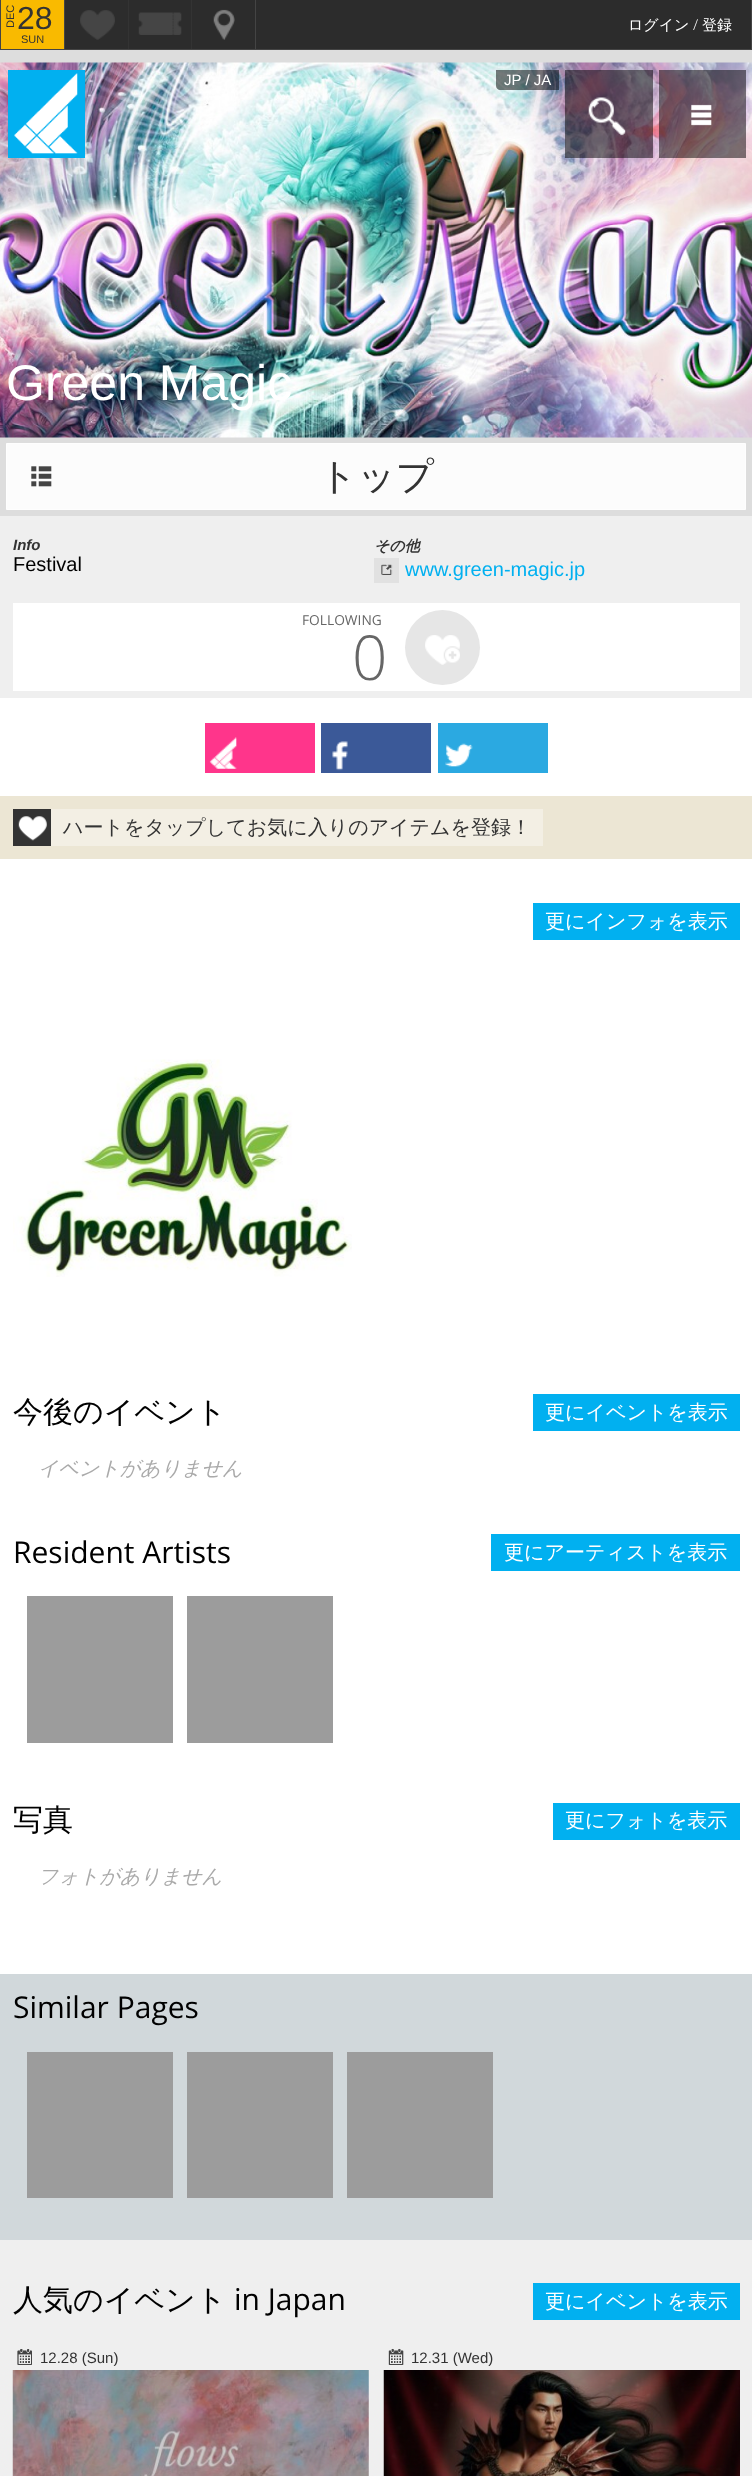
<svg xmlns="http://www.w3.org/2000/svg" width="752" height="2476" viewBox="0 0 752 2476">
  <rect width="100%" height="100%" fill="#fff"/>
  <path d="M0 50h752v466H0z" fill="#ddd"/>
  <path d="M65 0h686v49H65z" fill="#2c2c2c"/>
  <path d="M0 49h752v1H0z" fill="#444"/>
  <path d="M1 0h63v49H1z" fill="#f9ba00"/>
  <path d="M64 0h1v49H64z" fill="#444"/>
  <path d="M0 0h1v49H0z" fill="#444"/>
  <path d="M128 0h1v49H128z" fill="#333"/>
  <image x="80" y="10" width="35" height="30" href="img/1.png"/>
  <path d="M191 0h1v49H191z" fill="#333"/>
  <image x="138" y="12" width="44" height="23" href="img/2.png"/>
  <path d="M255 0h1v49H255z" fill="#444"/>
  <image x="213" y="9" width="22" height="31" href="img/3.png"/>
  <path d="M751 0h1v49H751z" fill="#444"/>
  <image x="0" y="62" width="752" height="376" href="img/4.png"/>
  <path d="M8 70h77v88H8z" fill="#01b0f0"/>
  <image x="14" y="73" width="64" height="81" href="img/5.png"/>
  <path d="M496 70H559V90H500C498 90 496 88 496 86Z" fill="#00000080"/>
  <path d="M565 70h88v88H565z" fill="#00000080"/>
  <image x="588" y="97" width="39" height="39" href="img/6.png"/>
  <path d="M659 70h87v88H659z" fill="#00000080"/>
  <image x="691" y="104" width="21" height="22" href="img/7.png"/>
  <path d="M6.5 443.5h739v66H6.5z" fill="#fcfcfc" stroke="#fefefe"/>
  <image x="31" y="466" width="21" height="21" href="img/8.png"/>
  <path d="M0 516h752v182H0z" fill="#efefef"/>
  <path d="M374 558h25v25H374z" fill="#e1e1e1"/>
  <image x="381" y="564" width="12" height="11" href="img/9.png"/>
  <path d="M13 603h727v88H13z" fill="#fff"/>
  <circle cx="442.5" cy="647.5" r="37.5" fill="#e6e6e6"/>
  <image x="425" y="635" width="35" height="30" href="img/10.png"/>
  <path d="M205 723h110v50H205z" fill="#ff358b"/>
  <image x="209" y="737" width="28" height="32" href="img/11.png"/>
  <path d="M321 723h110v50H321z" fill="#3b5998"/>
  <image x="332" y="741" width="16" height="30" href="img/12.png"/>
  <path d="M438 723h110v50H438z" fill="#2ba9e1"/>
  <image x="445" y="743" width="28" height="24" href="img/13.png"/>
  <path d="M0 796h752v63H0z" fill="#ece6d4"/>
  <path d="M51 809h492v37H51z" fill="#f3efe4"/>
  <path d="M13 809h38v37H13z" fill="#333"/>
  <image x="18" y="816" width="29" height="25" href="img/14.png"/>
  <path d="M533 903h207v37H533z" fill="#01b0f0"/>
  <image x="13" y="1059" width="339" height="218" href="img/15.png"/>
  <path d="M533 1394h207v37H533z" fill="#01b0f0"/>
  <path d="M491 1534h249v37H491z" fill="#01b0f0"/>
  <path d="M27 1596h146v147H27z" fill="#9c9c9c"/>
  <path d="M187 1596h146v147H187z" fill="#9c9c9c"/>
  <path d="M553 1803h187v37H553z" fill="#01b0f0"/>
  <path d="M0 1974h752v266H0z" fill="#d1d8db"/>
  <path d="M27 2052h146v146H27z" fill="#9c9c9c"/>
  <path d="M187 2052h146v146H187z" fill="#9c9c9c"/>
  <path d="M347 2052h146v146H347z" fill="#9c9c9c"/>
  <path d="M0 2240h752v236H0z" fill="#efefef"/>
  <path d="M533 2283h207v37H533z" fill="#01b0f0"/>
  <image x="17" y="2349" width="15" height="16" href="img/16.png"/>
  <image x="12" y="2370" width="357" height="106" href="img/17.png"/>
  <image x="388" y="2348" width="16" height="17" href="img/18.png"/>
  <image x="383" y="2370" width="357" height="106" href="img/19.png"/>
  <text x="14" y="28" transform="rotate(-90 14 28)" font-family="Liberation Sans" font-size="11" fill="#333">DEC</text>
  <text x="17" y="29" font-family="Liberation Sans" font-size="32" fill="#333">28</text>
  <text x="21" y="43" font-family="Liberation Sans" font-size="11" fill="#333">SUN</text>
  <text x="628" y="30" font-family="WenQuanYi Zen Hei" font-size="15" font-weight="500" fill="#fff">ログイン</text>
  <text x="693" y="30" font-family="Open Sans" font-size="15" font-weight="300" fill="#fff">/</text>
  <text x="702" y="30" font-family="WenQuanYi Zen Hei" font-size="15" font-weight="500" fill="#fff">登録</text>
  <text x="504" y="85" font-family="Liberation Sans" font-size="15" fill="#fff">JP / JA</text>
  <text x="6" y="400" font-family="Liberation Sans" font-size="50" fill="#fff">Green Magic</text>
  <text x="319" y="489" font-family="WenQuanYi Zen Hei" font-size="37.5" font-weight="500" fill="#333">トップ</text>
  <text x="13" y="550" font-family="Liberation Sans" font-size="15" font-weight="bold" font-style="italic" fill="#333">Info</text>
  <text x="13" y="571" font-family="Liberation Sans" font-size="20" fill="#000">Festival</text>
  <text x="374" y="551" font-family="WenQuanYi Zen Hei" font-size="15" font-weight="bold" font-style="italic" fill="#333">その他</text>
  <text x="405" y="576" font-family="Liberation Sans" font-size="20" fill="#01b0f0">www.green-magic.jp</text>
  <text x="302" y="625" font-family="Open Sans" font-size="13.75" fill="#666">FOLLOWING</text>
  <text x="352" y="680" font-family="Open Sans" font-size="62" font-weight="300" fill="#666">0</text>
  <text x="63" y="834" font-family="WenQuanYi Zen Hei" font-size="20" font-weight="500" fill="#333">ハートをタップしてお気に入りのアイテムを登録！</text>
  <text x="545" y="928" font-family="WenQuanYi Zen Hei" font-size="20" font-weight="500" fill="#fff">更にインフォを表示</text>
  <text x="13" y="1422" font-family="WenQuanYi Zen Hei" font-size="30" font-weight="500" fill="#000">今後のイベント</text>
  <text x="545" y="1419" font-family="WenQuanYi Zen Hei" font-size="20" font-weight="500" fill="#fff">更にイベントを表示</text>
  <text x="38" y="1475" font-family="WenQuanYi Zen Hei" font-size="20" font-weight="500" font-style="italic" fill="#aaa">イベントがありません</text>
  <text x="13" y="1563" font-family="Open Sans" font-size="30" fill="#000">Resident Artists</text>
  <text x="504" y="1559" font-family="WenQuanYi Zen Hei" font-size="20" font-weight="500" fill="#fff">更にアーティストを表示</text>
  <text x="13" y="1830" font-family="WenQuanYi Zen Hei" font-size="30" font-weight="500" fill="#000">写真</text>
  <text x="565" y="1827" font-family="WenQuanYi Zen Hei" font-size="20" font-weight="500" fill="#fff">更にフォトを表示</text>
  <text x="38" y="1883" font-family="WenQuanYi Zen Hei" font-size="20" font-weight="500" font-style="italic" fill="#aaa">フォトがありません</text>
  <text x="13" y="2018" font-family="Open Sans" font-size="30" fill="#000">Similar Pages</text>
  <text x="13" y="2310" font-family="WenQuanYi Zen Hei" font-size="30" font-weight="500" fill="#000">人気のイベント</text>
  <text x="234" y="2310" font-family="Open Sans" font-size="30" fill="#000">in Japan</text>
  <text x="545" y="2308" font-family="WenQuanYi Zen Hei" font-size="20" font-weight="500" fill="#fff">更にイベントを表示</text>
  <g font-family="Liberation Sans" font-size="15" fill="#333">
    <text x="40" y="2363">12.28 (Sun)</text>
    <text x="411" y="2363">12.31 (Wed)</text>
  </g>
</svg>
